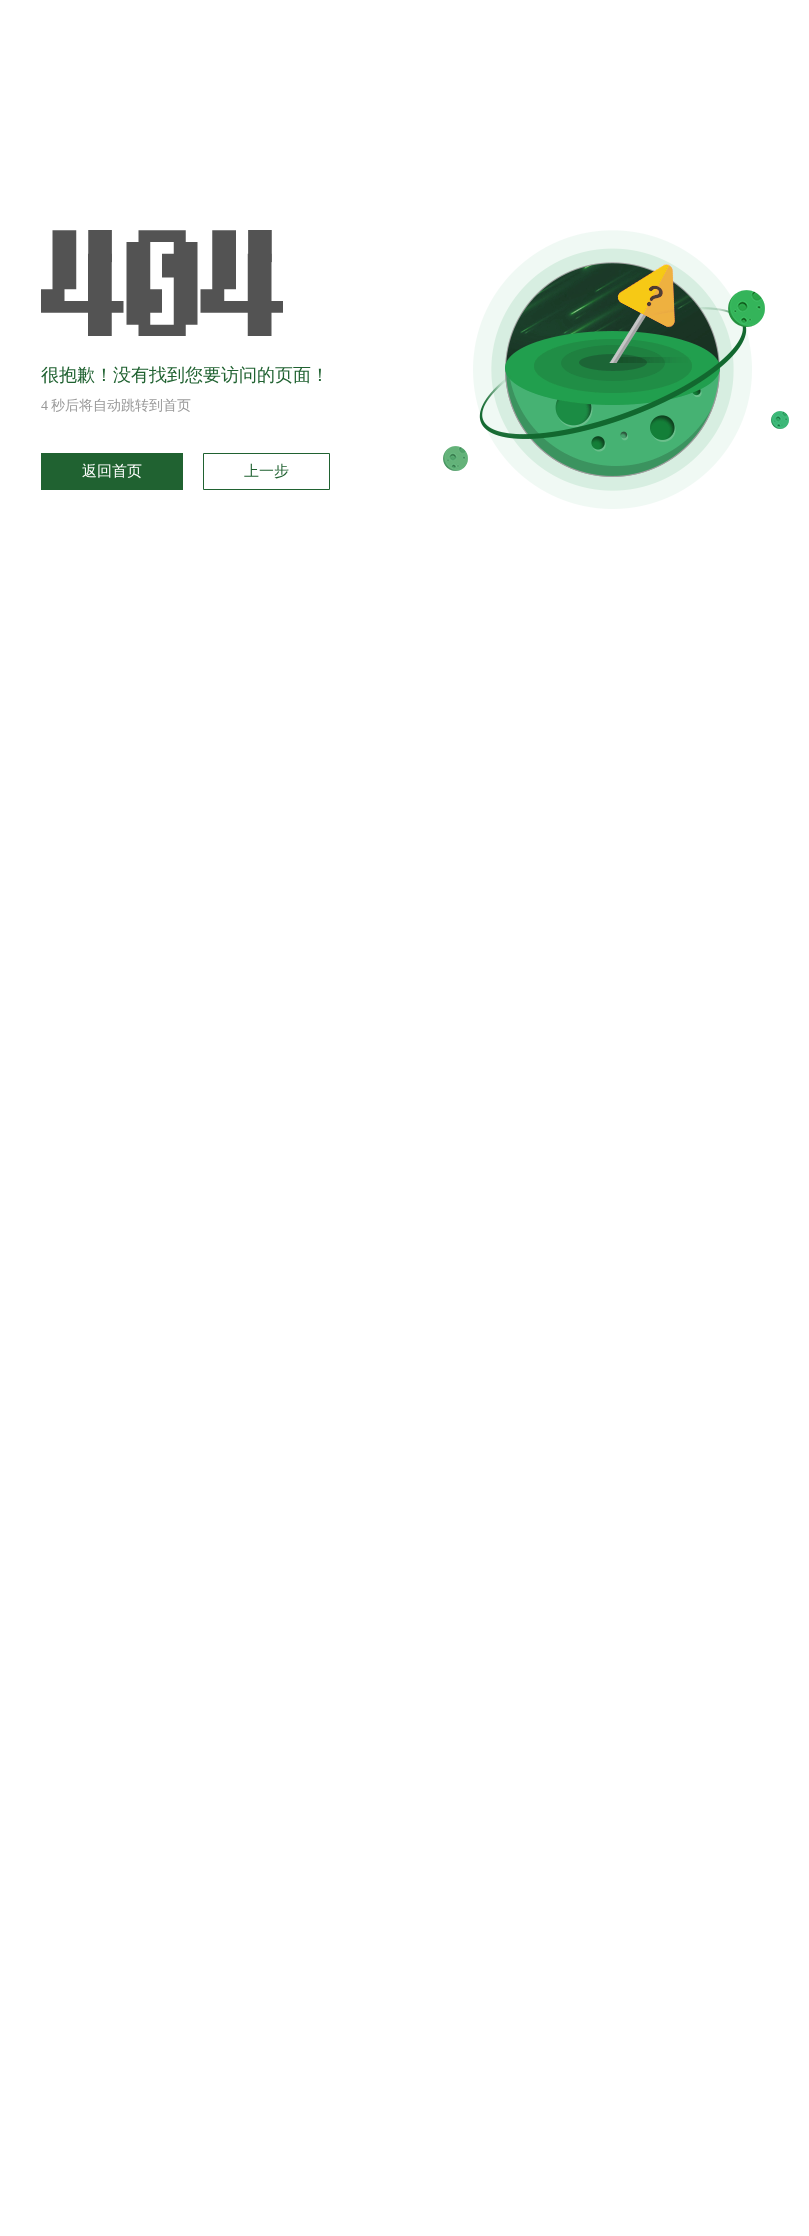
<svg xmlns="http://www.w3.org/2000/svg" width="809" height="2236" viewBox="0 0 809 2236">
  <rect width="100%" height="100%" fill="#fff"/>
  <image x="443" y="230" width="346" height="279" href="img/1.png"/>
  <image x="41" y="230" width="242" height="106" href="img/2.png"/>
  <path d="M41 453h142v37H41z" fill="#206231"/>
  <path d="M203.5 453.5h126v36H203.5z" fill="none" stroke="#206231"/>
  <text x="41" y="381" font-family="WenQuanYi Zen Hei" font-size="18" font-weight="500" fill="#206231">很抱歉！没有找到您要访问的页面！</text>
  <text x="41" y="410" font-family="Liberation Serif" font-size="14" fill="#999">4</text>
  <text x="51" y="410" font-family="WenQuanYi Zen Hei" font-size="14" font-weight="500" fill="#999">秒后将自动跳转到首页</text>
  <text x="82" y="476" font-family="WenQuanYi Zen Hei" font-size="15" font-weight="500" fill="#fff">返回首页</text>
  <text x="244" y="476" font-family="WenQuanYi Zen Hei" font-size="15" font-weight="500" fill="#206231">上一步</text>
</svg>
